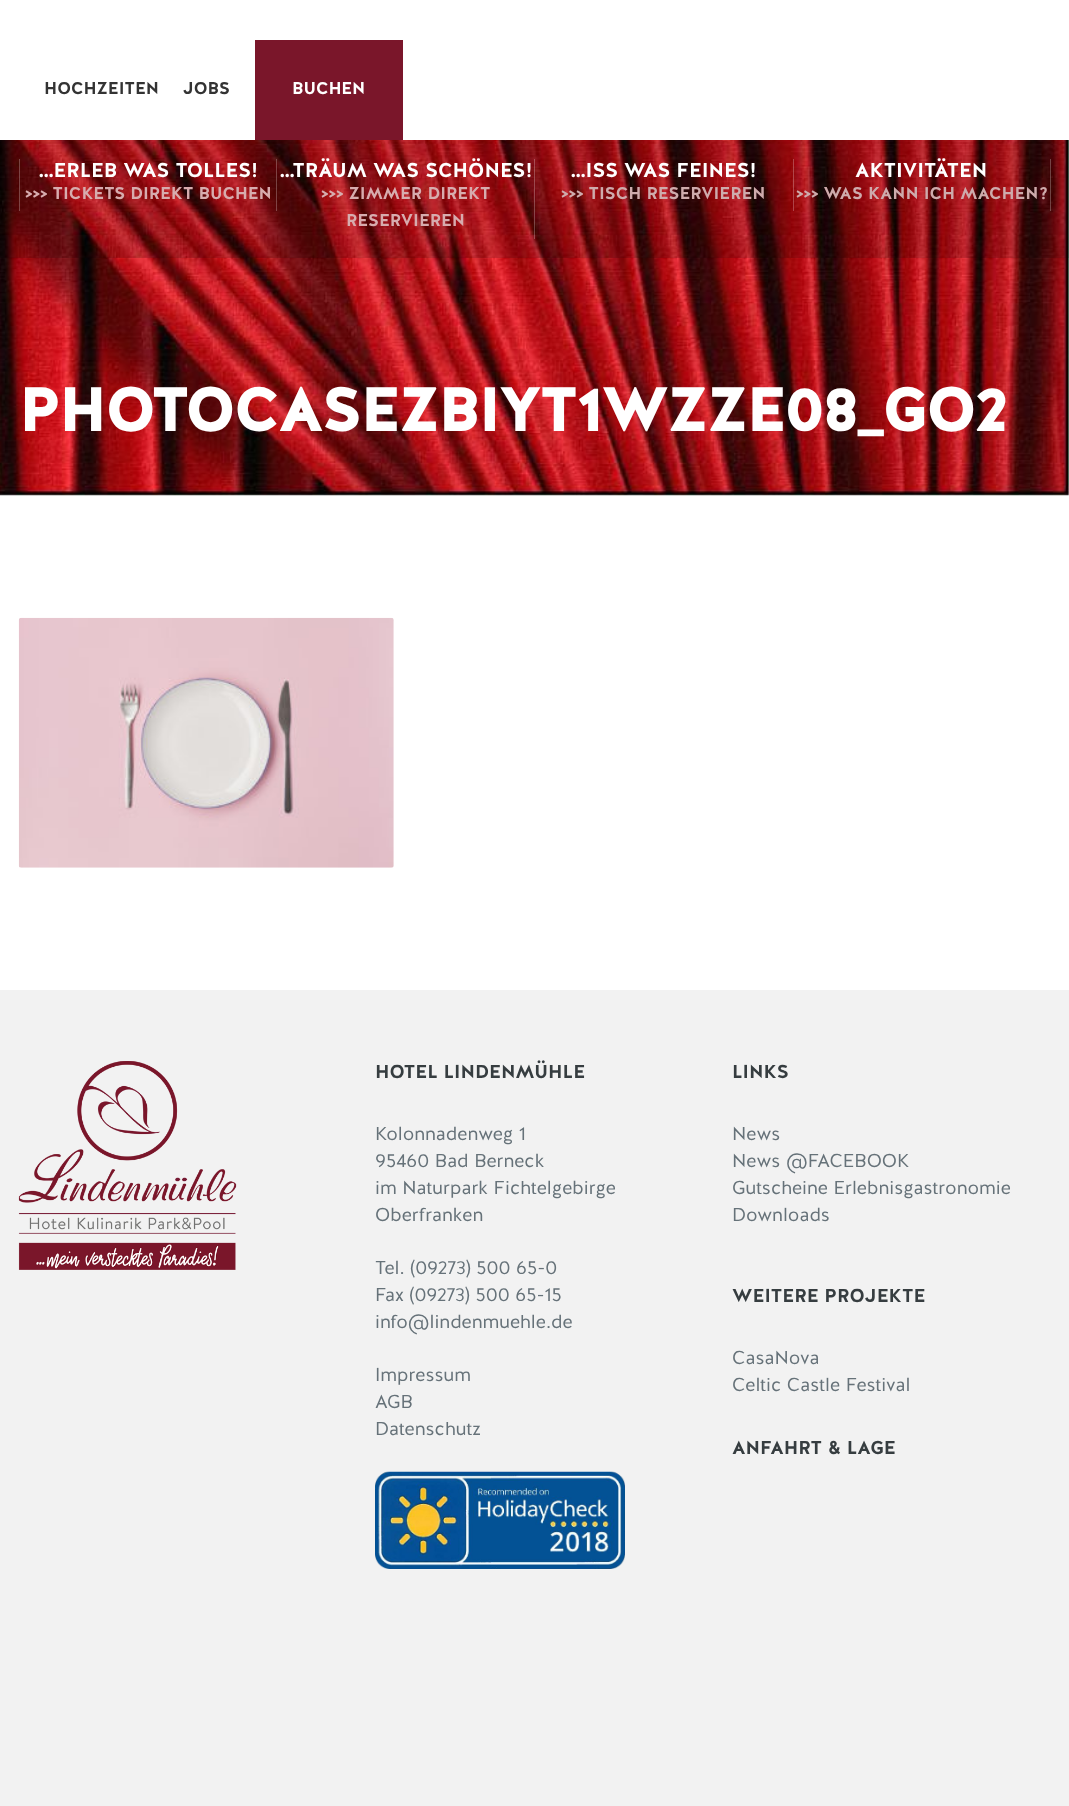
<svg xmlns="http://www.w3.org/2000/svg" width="1069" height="1806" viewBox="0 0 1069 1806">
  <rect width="100%" height="100%" fill="#fff"/>
  <image x="0" y="140" width="1069" height="356" href="img/1.png"/>
  <path d="M0 140h1069v118H0z" fill="#00000026"/>
  <path d="M255 40h148v100H255z" fill="#7a162a"/>
  <path d="M276 159h1v52H276z" fill="#ffffff40"/>
  <path d="M19 159h1v52H19z" fill="#ffffff40"/>
  <path d="M534 159h1v80H534z" fill="#ffffff40"/>
  <path d="M793 159h1v52H793z" fill="#ffffff40"/>
  <path d="M1050 159h1v52H1050z" fill="#ffffff40"/>
  <image x="18" y="617" width="376" height="251" href="img/2.png"/>
  <path d="M0 990h1069v816H0z" fill="#f2f2f2"/>
  <image x="18" y="1061" width="219" height="209" href="img/3.png"/>
  <image x="375" y="1471" width="250" height="98" href="img/4.png"/>
  <g font-family="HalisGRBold" font-size="17" fill="#333">
    <text x="44" y="94">HOCHZEITEN</text>
    <text x="183" y="94">JOBS</text>
  </g>
  <text x="292" y="94" font-family="HalisGRBold" font-size="17" fill="#fff">BUCHEN</text>
  <text x="38" y="177" font-family="HalisGRBold" font-size="20" fill="#fff">…ERLEB WAS TOLLES!</text>
  <text x="25" y="199" font-family="HalisGRBold" font-size="17" fill="#d7acae">&gt;&gt;&gt; TICKETS DIREKT BUCHEN</text>
  <text x="279" y="177" font-family="HalisGRBold" font-size="20" fill="#fff">…TRÄUM WAS SCHÖNES!</text>
  <g font-family="HalisGRBold" font-size="17" fill="#d7acae">
    <text x="321" y="199">&gt;&gt;&gt; ZIMMER DIREKT</text>
    <text x="346" y="226">RESERVIEREN</text>
  </g>
  <text x="570" y="177" font-family="HalisGRBold" font-size="20" fill="#fff">…ISS WAS FEINES!</text>
  <text x="561" y="199" font-family="HalisGRBold" font-size="17" fill="#ceabac">&gt;&gt;&gt; TISCH RESERVIEREN</text>
  <text x="855" y="177" font-family="HalisGRBold" font-size="20" fill="#fff">AKTIVITÄTEN</text>
  <text x="796" y="199" font-family="HalisGRBold" font-size="17" fill="#ceabac">&gt;&gt;&gt; WAS KANN ICH MACHEN?</text>
  <text x="19" y="431" font-family="HalisGRBold" font-size="60" font-weight="bold" fill="#fff">PHOTOCASEZBIYT1WZZE08_GO2</text>
  <text x="375" y="1078" font-family="HalisGRBold" font-size="18.75" fill="#363d40">HOTEL LINDENMÜHLE</text>
  <g font-family="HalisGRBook" font-size="18.75" fill="#667279">
    <text x="375" y="1140">Kolonnadenweg 1</text>
    <text x="375" y="1167">95460 Bad Berneck</text>
    <text x="375" y="1194">im Naturpark Fichtelgebirge</text>
    <text x="375" y="1221">Oberfranken</text>
    <text x="375" y="1274">Tel. (09273) 500 65-0</text>
    <text x="375" y="1301">Fax (09273) 500 65-15</text>
    <text x="375" y="1328">info@lindenmuehle.de</text>
    <text x="375" y="1381">Impressum</text>
    <text x="375" y="1408">AGB</text>
    <text x="375" y="1435">Datenschutz</text>
  </g>
  <text x="732" y="1078" font-family="HalisGRBold" font-size="18.75" fill="#363d40">LINKS</text>
  <g font-family="HalisGRBook" font-size="18.75" fill="#667279">
    <text x="732" y="1140">News</text>
    <text x="732" y="1167">News @FACEBOOK</text>
    <text x="732" y="1194">Gutscheine Erlebnisgastronomie</text>
    <text x="732" y="1221">Downloads</text>
  </g>
  <text x="732" y="1302" font-family="HalisGRBold" font-size="18.75" fill="#363d40">WEITERE PROJEKTE</text>
  <g font-family="HalisGRBook" font-size="18.75" fill="#667279">
    <text x="732" y="1364">CasaNova</text>
    <text x="732" y="1391">Celtic Castle Festival</text>
  </g>
  <text x="732" y="1454" font-family="HalisGRBold" font-size="18.75" fill="#363d40">ANFAHRT &amp; LAGE</text>
</svg>
